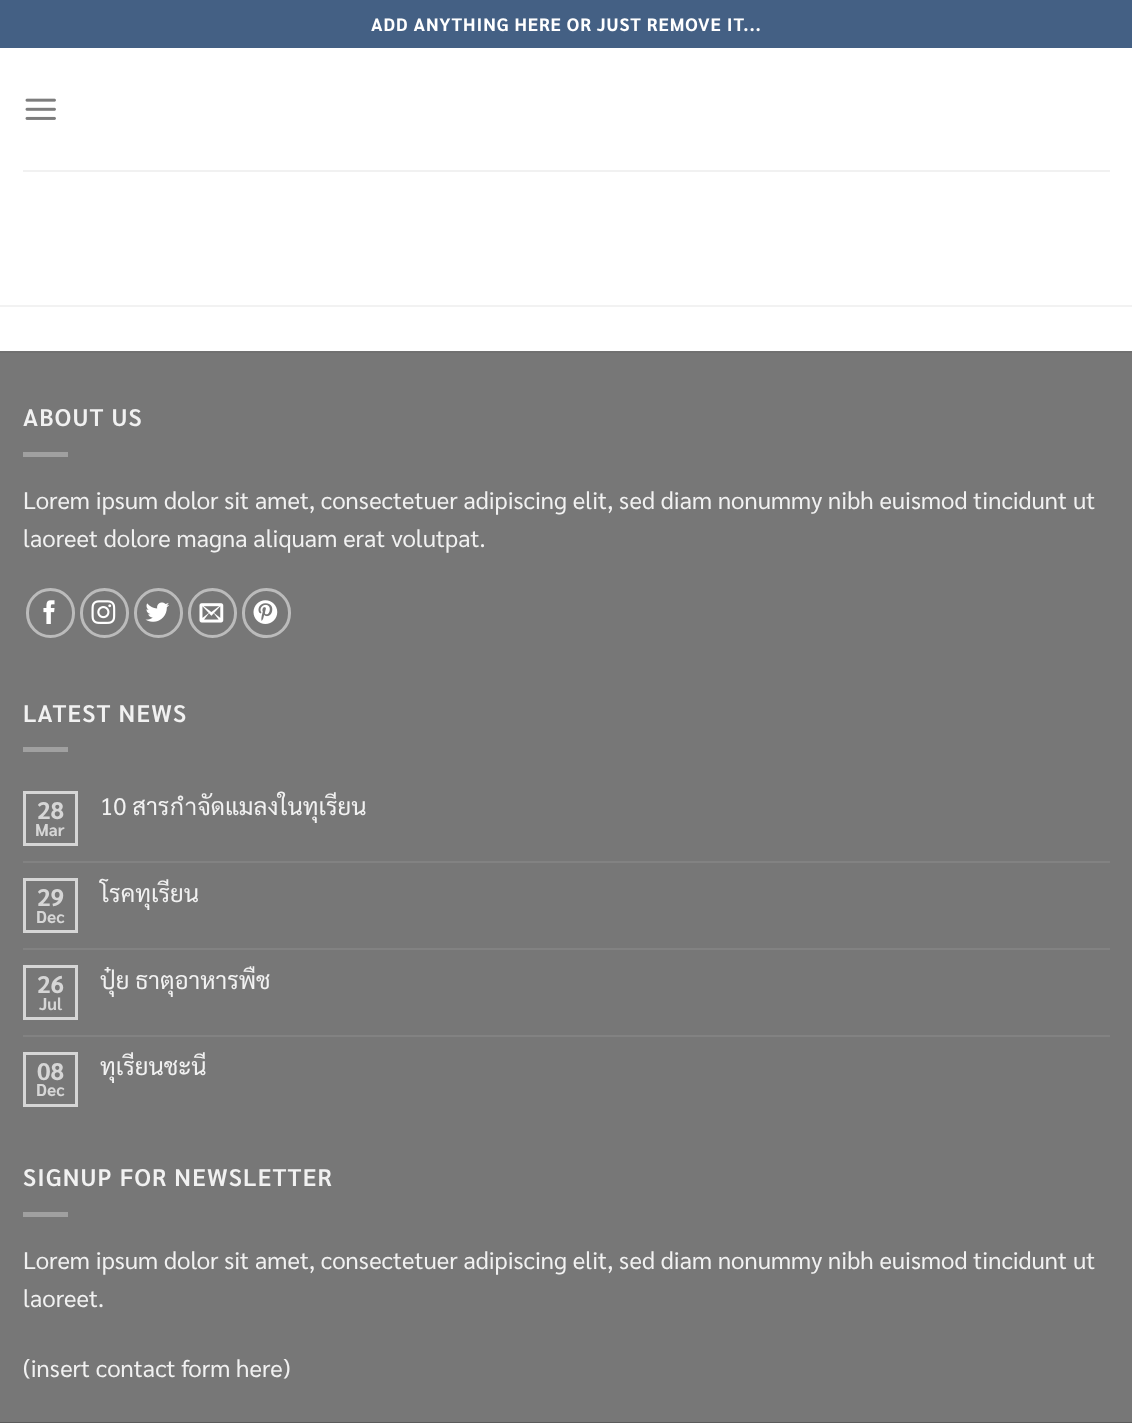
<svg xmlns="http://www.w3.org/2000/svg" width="1132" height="1423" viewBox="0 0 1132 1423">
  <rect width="100%" height="100%" fill="#fff"/>
  <path d="M0 0h1132v48H0z" fill="#446084"/>
  <image x="25" y="98" width="31" height="22" href="img/1.png"/>
  <path d="M23 170h1087v2H23z" fill="#f1f1f1"/>
  <path d="M0 305h1132v2H0z" fill="#f2f2f2"/>
  <path d="M0 353h1132v1069H0z" fill="#777"/>
  <path d="M0 351h1132v2H0z" fill="#717171"/>
  <path d="M23 452h45v5H23z" fill="#a0a0a0"/>
  <rect x="27.5" y="589.5" width="46" height="47" rx="23" fill="none" stroke="#bbb" stroke-width="3"/>
  <image x="43" y="600" width="12" height="24" href="img/2.png"/>
  <rect x="81.5" y="589.5" width="46" height="47" rx="23" fill="none" stroke="#bbb" stroke-width="3"/>
  <image x="91" y="600" width="25" height="24" href="img/3.png"/>
  <rect x="135.5" y="589.5" width="46" height="47" rx="23" fill="none" stroke="#bbb" stroke-width="3"/>
  <image x="145" y="602" width="24" height="20" href="img/4.png"/>
  <rect x="189.5" y="589.5" width="46" height="47" rx="23" fill="none" stroke="#bbb" stroke-width="3"/>
  <image x="199" y="603" width="25" height="20" href="img/5.png"/>
  <rect x="243.5" y="589.5" width="46" height="47" rx="23" fill="none" stroke="#bbb" stroke-width="3"/>
  <image x="253" y="600" width="25" height="24" href="img/6.png"/>
  <path d="M23 747h45v5H23z" fill="#a0a0a0"/>
  <path d="M24.5 792.5h52v52H24.5z" fill="none" stroke="#d6d6d6" stroke-width="3"/>
  <path d="M23 861h1087v2H23z" fill="#828282"/>
  <path d="M24.5 879.5h52v52H24.5z" fill="none" stroke="#d6d6d6" stroke-width="3"/>
  <path d="M23 948h1087v2H23z" fill="#828282"/>
  <path d="M24.5 966.5h52v52H24.5z" fill="none" stroke="#d6d6d6" stroke-width="3"/>
  <path d="M23 1035h1087v2H23z" fill="#828282"/>
  <path d="M24.5 1053.5h52v52H24.5z" fill="none" stroke="#d6d6d6" stroke-width="3"/>
  <path d="M23 1212h45v5H23z" fill="#a0a0a0"/>
  <path d="M0 1422h1132v1H0z" fill="#5b5b5b"/>
  <text x="371" y="31" font-family="Sarabun" font-size="18" font-weight="bold" letter-spacing="0.9" fill="#fff">ADD ANYTHING HERE OR JUST REMOVE IT...</text>
  <text x="23" y="426" font-family="Sarabun" font-size="24" font-weight="600" letter-spacing="1.2" fill="#f1f1f1">ABOUT US</text>
  <g font-family="Sarabun" font-size="24" fill="#f1f1f1">
    <text x="23" y="509">Lorem ipsum dolor sit amet, consectetuer adipiscing elit, sed diam nonummy nibh euismod tincidunt ut</text>
    <text x="23" y="547">laoreet dolore magna aliquam erat volutpat.</text>
  </g>
  <text x="23" y="722" font-family="Sarabun" font-size="24" font-weight="600" letter-spacing="1.2" fill="#f1f1f1">LATEST NEWS</text>
  <text x="37" y="819" font-family="Sarabun" font-size="24" font-weight="bold" fill="#d6d6d6">28</text>
  <text x="35" y="836" font-family="Sarabun" font-size="17" font-weight="bold" fill="#d6d6d6">Mar</text>
  <text x="100" y="815" font-family="Sarabun" font-size="24" fill="#f1f1f1">10 สารกำจัดแมลงในทุเรียน</text>
  <text x="37" y="906" font-family="Sarabun" font-size="24" font-weight="bold" fill="#d6d6d6">29</text>
  <text x="36" y="923" font-family="Sarabun" font-size="17" font-weight="bold" fill="#d6d6d6">Dec</text>
  <text x="100" y="902" font-family="Sarabun" font-size="24" fill="#f1f1f1">โรคทุเรียน</text>
  <text x="37" y="993" font-family="Sarabun" font-size="24" font-weight="bold" fill="#d6d6d6">26</text>
  <text x="39" y="1010" font-family="Sarabun" font-size="17" font-weight="bold" fill="#d6d6d6">Jul</text>
  <text x="100" y="989" font-family="Sarabun" font-size="24" fill="#f1f1f1">ปุ๋ย ธาตุอาหารพืช</text>
  <text x="37" y="1080" font-family="Sarabun" font-size="24" font-weight="bold" fill="#d6d6d6">08</text>
  <text x="36" y="1096" font-family="Sarabun" font-size="17" font-weight="bold" fill="#d6d6d6">Dec</text>
  <text x="100" y="1075" font-family="Sarabun" font-size="24" fill="#f1f1f1">ทุเรียนชะนี</text>
  <text x="23" y="1186" font-family="Sarabun" font-size="24" font-weight="600" letter-spacing="1.2" fill="#f1f1f1">SIGNUP FOR NEWSLETTER</text>
  <g font-family="Sarabun" font-size="24" fill="#f1f1f1">
    <text x="23" y="1269">Lorem ipsum dolor sit amet, consectetuer adipiscing elit, sed diam nonummy nibh euismod tincidunt ut</text>
    <text x="23" y="1307">laoreet.</text>
    <text x="23" y="1377">(insert contact form here)</text>
  </g>
</svg>
